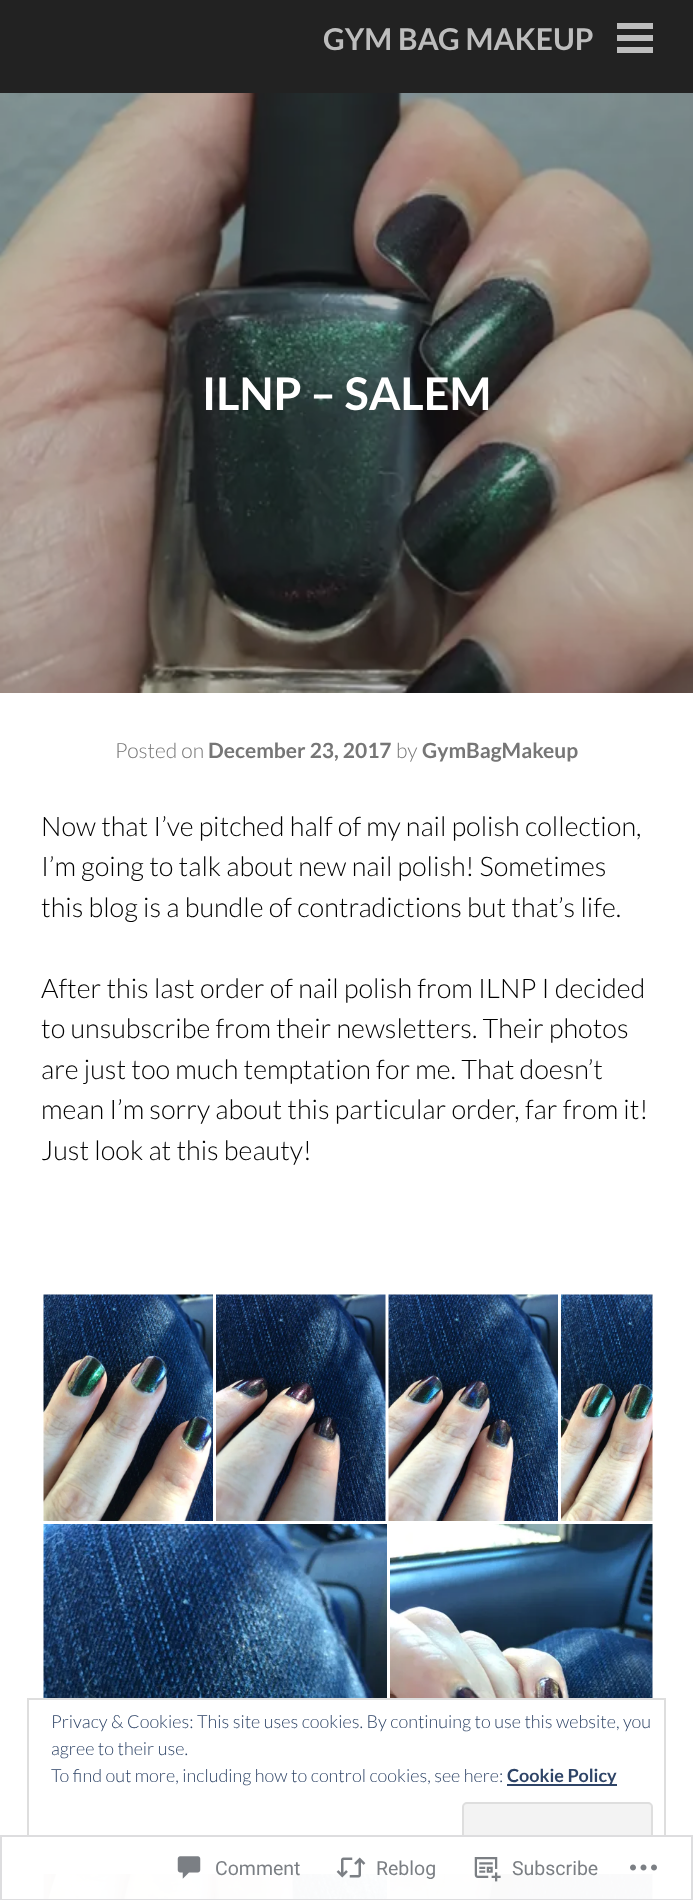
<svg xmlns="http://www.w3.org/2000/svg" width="693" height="1900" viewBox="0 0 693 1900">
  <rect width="100%" height="100%" fill="#fff"/>
  <path d="M0 0h693v93H0z" fill="#222"/>
  <path d="M617 35h36v6H617z" fill="#bdbdbd"/>
  <path d="M617 23h36v6H617z" fill="#bdbdbd"/>
  <path d="M617 47h36v6H617z" fill="#bdbdbd"/>
  <image x="0" y="93" width="693" height="600" href="img/1.png"/>
  <image x="43" y="1294" width="170" height="227" href="img/2.png"/>
  <image x="216" y="1294" width="170" height="227" href="img/3.png"/>
  <image x="388" y="1294" width="170" height="227" href="img/4.png"/>
  <image x="561" y="1294" width="92" height="227" href="img/5.png"/>
  <image x="43" y="1524" width="344" height="376" href="img/6.png"/>
  <image x="390" y="1524" width="263" height="376" href="img/7.png"/>
  <path d="M43 1700h610v172H43z" fill="#fff"/>
  <path d="M28 1699h637v174H28z" fill="none" stroke="#dedede" stroke-width="2"/>
  <path d="M507 1784h110v2H507z" fill="#2e4467"/>
  <rect x="463" y="1803" width="189" height="56" rx="4" fill="#f3f3f3" stroke="#dedede" stroke-width="2"/>
  <path d="M27 1835h639v65H27z" fill="#fffffffa"/>
  <path d="M1 1836h691v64H1z" fill="none" stroke="#dcdcdefa" stroke-width="2"/>
  <image x="177" y="1856" width="24" height="23" href="img/8.png"/>
  <image x="336" y="1857" width="30" height="21" href="img/9.png"/>
  <image x="474" y="1857" width="27" height="25" href="img/10.png"/>
  <image x="630" y="1864" width="27" height="7" href="img/11.png"/>
  <text x="323" y="50" font-family="Lato" font-size="30" font-weight="bold" fill="#bdbdbd">GYM BAG MAKEUP</text>
  <text x="202" y="410" font-family="Lato" font-size="45" font-weight="bold" fill="#fff">ILNP – SALEM</text>
  <text x="115" y="758" font-family="Lato" font-size="21" font-weight="300" fill="#767676">Posted on</text>
  <text x="208" y="758" font-family="Lato" font-size="21" font-weight="bold" fill="#767676">December 23, 2017</text>
  <text x="396" y="758" font-family="Lato" font-size="21" font-weight="300" fill="#767676">by</text>
  <text x="422" y="758" font-family="Lato" font-size="21" font-weight="bold" fill="#767676">GymBagMakeup</text>
  <g font-family="Lato" font-size="27" font-weight="300" fill="#000">
    <text x="41" y="836">Now that I’ve pitched half of my nail polish collection,</text>
    <text x="41" y="876">I’m going to talk about new nail polish! Sometimes</text>
    <text x="41" y="917">this blog is a bundle of contradictions but that’s life.</text>
    <text x="41" y="998">After this last order of nail polish from ILNP I decided</text>
    <text x="41" y="1038">to unsubscribe from their newsletters. Their photos</text>
    <text x="41" y="1079">are just too much temptation for me. That doesn’t</text>
    <text x="41" y="1119">mean I’m sorry about this particular order, far from it!</text>
    <text x="41" y="1160">Just look at this beauty!</text>
  </g>
  <g font-family="Lato" font-size="18" font-weight="300" fill="#2e4467">
    <text x="51" y="1728">Privacy &amp; Cookies: This site uses cookies. By continuing to use this website, you</text>
    <text x="51" y="1755">agree to their use.</text>
    <text x="51" y="1782">To find out more, including how to control cookies, see here:</text>
  </g>
  <text x="507" y="1782" font-family="Lato" font-size="18" font-weight="bold" fill="#2e4467">Cookie Policy</text>
  <g font-family="Roboto" font-size="19.5" fill="#7b7f84">
    <text x="215" y="1875">Comment</text>
    <text x="376" y="1875">Reblog</text>
    <text x="512" y="1875">Subscribe</text>
  </g>
</svg>
